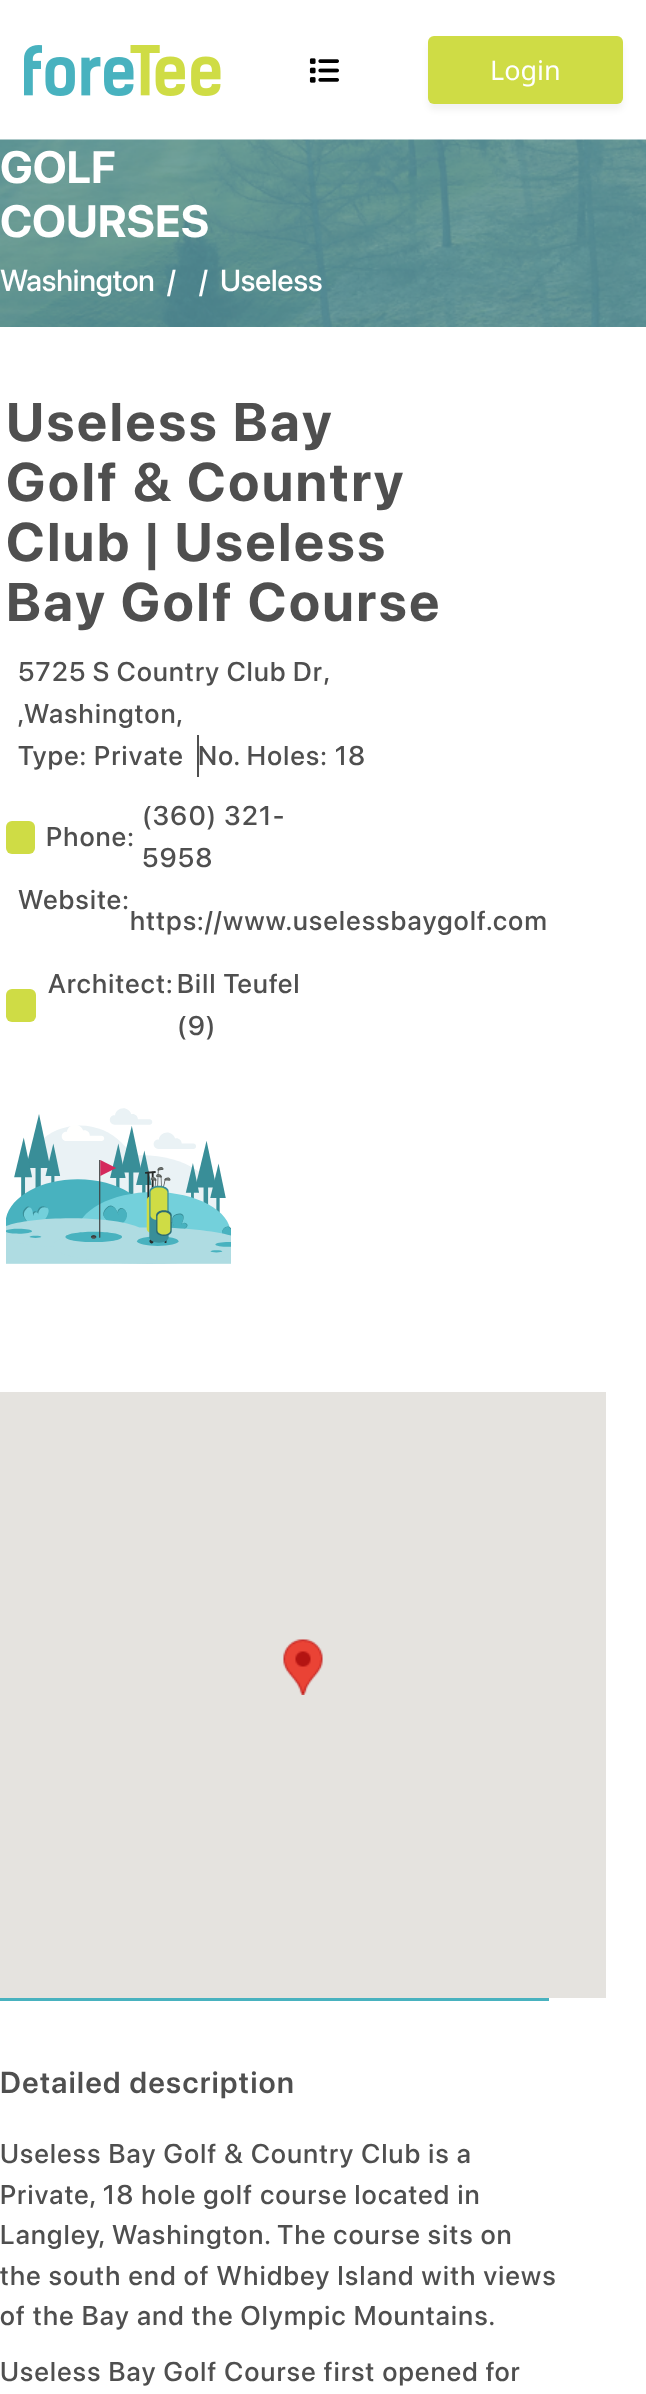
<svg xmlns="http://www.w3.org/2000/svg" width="646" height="2394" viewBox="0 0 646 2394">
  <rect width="100%" height="100%" fill="#fff"/>
  <image x="24" y="45" width="197" height="51" href="img/1.png"/>
  <image x="309" y="58" width="30" height="25" href="img/2.png"/>
  <rect x="428" y="42" width="195" height="68" rx="6" fill="#0000000d" filter="blur(3px)"/>
  <rect x="428" y="36" width="195" height="68" rx="6" fill="#cfdc45"/>
  <image x="0" y="139" width="646" height="188" href="img/3.png"/>
  <path d="M197 735h2v42H197z" fill="#4f4f4f"/>
  <rect x="6" y="821" width="29" height="33" rx="6" fill="#cfdc45"/>
  <rect x="6" y="989" width="30" height="33" rx="6" fill="#cfdc45"/>
  <image x="6" y="1108" width="225" height="156" href="img/4.png"/>
  <path d="M0 1392h606v606H0z" fill="#e5e3df"/>
  <image x="283" y="1639" width="40" height="56" href="img/5.png"/>
  <path d="M0 1998h549v3H0z" fill="#48b2bf"/>
  <text x="490" y="80" font-family="Noto Sans" font-size="27" fill="#fff">Login</text>
  <g font-family="SF Pro Display" font-size="45" font-weight="bold" fill="#fff">
    <text x="0" y="183">GOLF</text>
    <text x="0" y="237">COURSES</text>
  </g>
  <g font-family="SF Pro Display" font-size="30" font-weight="500" fill="#fff">
    <text x="0" y="291">Washington</text>
    <text x="167" y="291">/</text>
    <text x="199" y="291">/</text>
    <text x="220" y="291">Useless</text>
  </g>
  <g font-family="SF Pro Display" font-size="54" font-weight="bold" letter-spacing="2.75" fill="#4f4f4f">
    <text x="6" y="441">Useless Bay</text>
    <text x="6" y="501">Golf &amp; Country</text>
    <text x="6" y="561">Club | Useless</text>
    <text x="6" y="621">Bay Golf Course</text>
  </g>
  <g font-family="SF Pro Display" font-size="27" font-weight="500" letter-spacing="1.35" fill="#4f4f4f">
    <text x="18" y="681" word-spacing="-0.5">5725 S Country Club Dr</text>
    <text x="324" y="681">,</text>
    <text x="18" y="723">,</text>
    <text x="24" y="723">Washington,</text>
    <text x="18" y="765">Type: Private</text>
    <text x="198" y="765">No. Holes: 18</text>
    <text x="46" y="846">Phone:</text>
    <text x="142" y="825">(360) 321-</text>
    <text x="142" y="867">5958</text>
    <text x="18" y="909">Website:</text>
    <text x="130" y="930">https://www.uselessbaygolf.com</text>
    <text x="48" y="993">Architect:</text>
    <text x="177" y="993">Bill Teufel</text>
    <text x="177" y="1035">(9)</text>
  </g>
  <text x="0" y="2093" font-family="SF Pro Display" font-size="30" font-weight="600" letter-spacing="1.5" fill="#4f4f4f">Detailed description</text>
  <g font-family="SF Pro Display" font-size="27" font-weight="500" letter-spacing="1.35" fill="#4f4f4f">
    <text x="0" y="2163">Useless Bay Golf &amp; Country Club is a</text>
    <text x="0" y="2204">Private, 18 hole golf course located in</text>
    <text x="0" y="2244">Langley, Washington. The course sits on</text>
    <text x="0" y="2285">the south end of Whidbey Island with views</text>
    <text x="0" y="2325">of the Bay and the Olympic Mountains.</text>
    <text x="0" y="2381">Useless Bay Golf Course first opened for</text>
  </g>
</svg>
